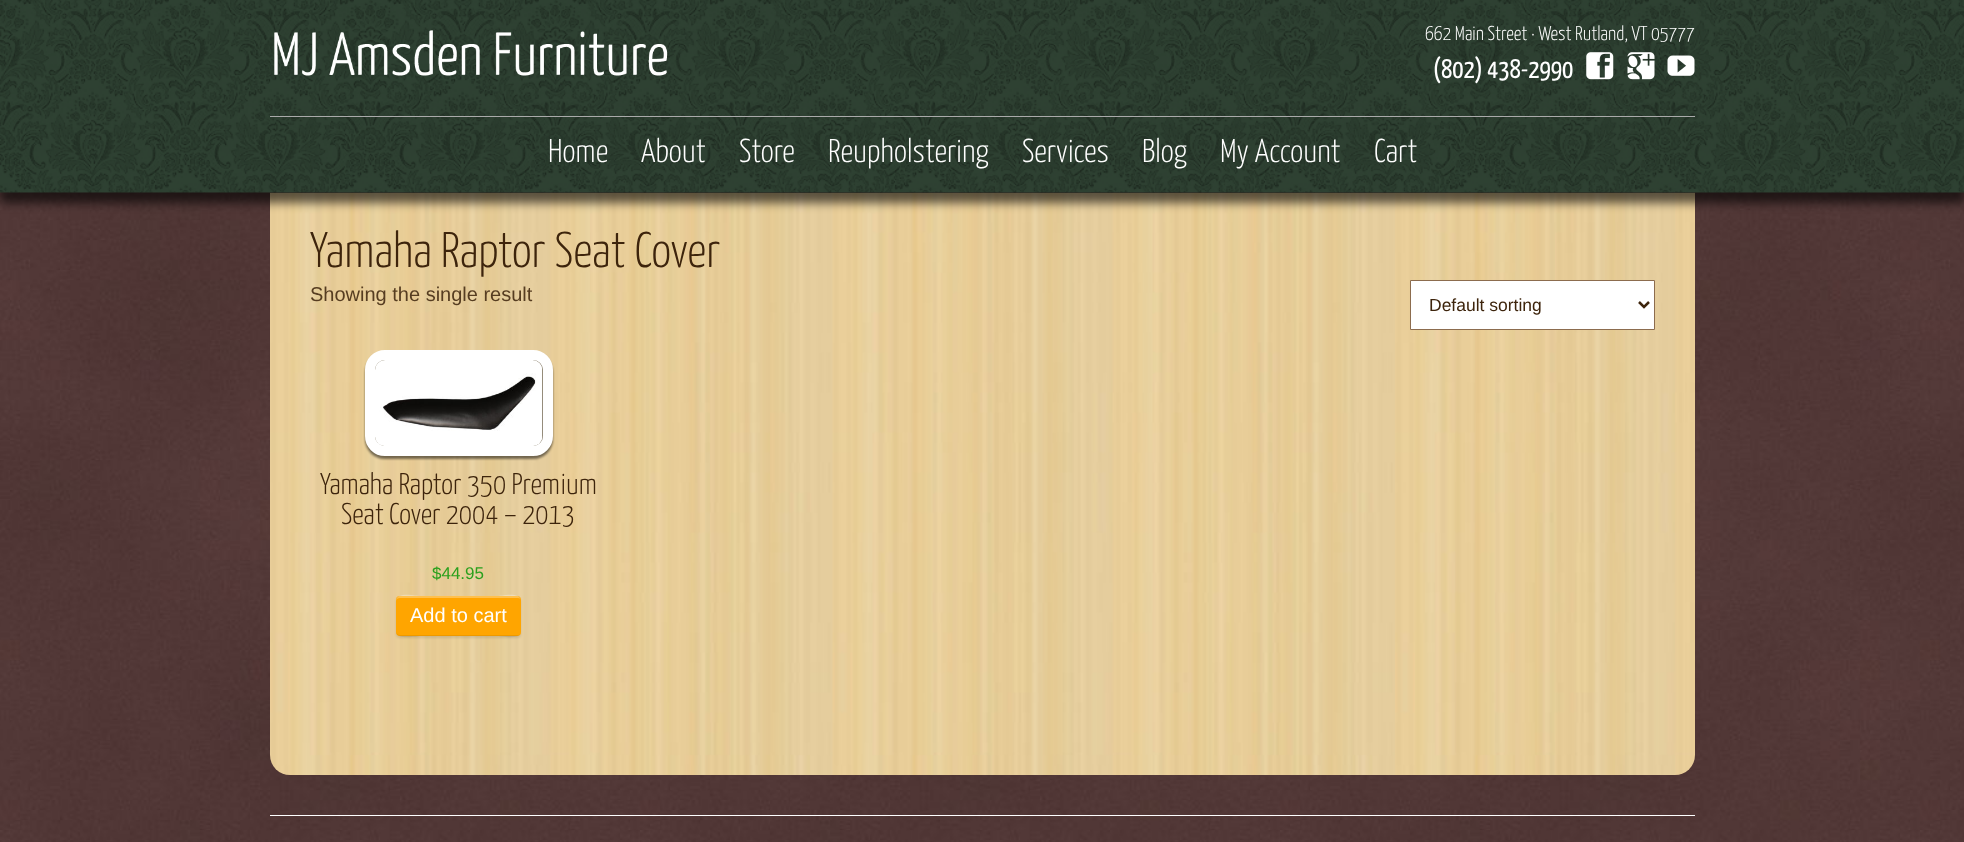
<svg xmlns="http://www.w3.org/2000/svg" width="1964" height="842" viewBox="0 0 1964 842">
  <rect width="100%" height="100%" fill="#fff"/>
  <image x="0" y="192" width="1964" height="650" href="img/1.png"/>
  <image x="270" y="192" width="1425" height="583" href="img/7.png"/>
  <path d="M0 10h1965v193H0z" fill="#00000099" filter="blur(5px)"/>
  <image x="0" y="0" width="1964" height="193" href="img/2.png"/>
  <image x="274" y="30" width="394" height="46" href="img/3.png"/>
  <image x="1586" y="52" width="28" height="28" href="img/4.png"/>
  <image x="1627" y="52" width="28" height="28" href="img/5.png"/>
  <image x="1667" y="55" width="28" height="21" href="img/6.png"/>
  <path d="M270 116h1425v1H270z" fill="#aaa"/>
  <path d="M1410.5 280.5h244v49H1410.5z" fill="#fff" stroke="#8c6c4e"/>
  <path d="M1639 302L1644 307L1649 302" fill="none" stroke="#3d240c" stroke-width="2.5"/>
  <rect x="365" y="353" width="188" height="106" rx="20" fill="#00000080" filter="blur(1px)"/>
  <rect x="370" y="355" width="178" height="96" rx="15" fill="none" stroke="#fff" stroke-width="10"/>
  <image x="375" y="360" width="168" height="86" href="img/8.png"/>
  <rect x="396" y="598" width="125" height="40" rx="4" fill="#0000001a" filter="blur(1px)"/>
  <rect x="396" y="596" width="125" height="40" rx="4" fill="#ffa500"/>
  <path d="M400 598H518C520 598 521 599 521 601C521 591 500 596 498 596H420C417 596 396 591 396 601C396 599 398 598 400 598Z" fill="#ffffff4d"/>
  <path d="M396 631C396 641 417 636 420 636H498C500 636 521 641 521 631C521 633 520 635 518 635H400C398 635 396 633 396 631Z" fill="#00000012"/>
  <path d="M270 815h1425v1H270z" fill="#fff"/>
  <text x="1425" y="40" font-family="Yanone Kaffeesatz" font-size="20" font-weight="300" fill="#fff">662 Main Street · West Rutland, VT 05777</text>
  <text x="1433" y="78" font-family="Yanone Kaffeesatz" font-size="27" fill="#fff">(802) 438-2990</text>
  <g font-family="Yanone Kaffeesatz" font-size="33" font-weight="300" fill="#fff">
    <text x="548" y="162">Home</text>
    <text x="641" y="162">About</text>
    <text x="739" y="162">Store</text>
    <text x="828" y="162">Reupholstering</text>
    <text x="1022" y="162">Services</text>
    <text x="1142" y="162">Blog</text>
    <text x="1220" y="162">My Account</text>
    <text x="1374" y="162">Cart</text>
  </g>
  <text x="310" y="267" font-family="Yanone Kaffeesatz" font-size="50" font-weight="300" fill="#3d240c">Yamaha Raptor Seat Cover</text>
  <text x="310" y="301" font-family="Liberation Sans" font-size="20" fill="#563d21">Showing the single result</text>
  <text x="1429" y="311" font-family="Liberation Sans" font-size="17.5" fill="#3d240c">Default sorting</text>
  <g font-family="Yanone Kaffeesatz" font-size="30" font-weight="300" fill="#3d240c">
    <text x="320" y="494">Yamaha Raptor 350 Premium</text>
    <text x="341" y="524">Seat Cover 2004 – 2013</text>
  </g>
  <text x="432" y="579" font-family="Liberation Sans" font-size="17" fill="#2aa01c">$44.95</text>
  <text x="410" y="622" font-family="Liberation Sans" font-size="20" fill="#fff">Add to cart</text>
</svg>
